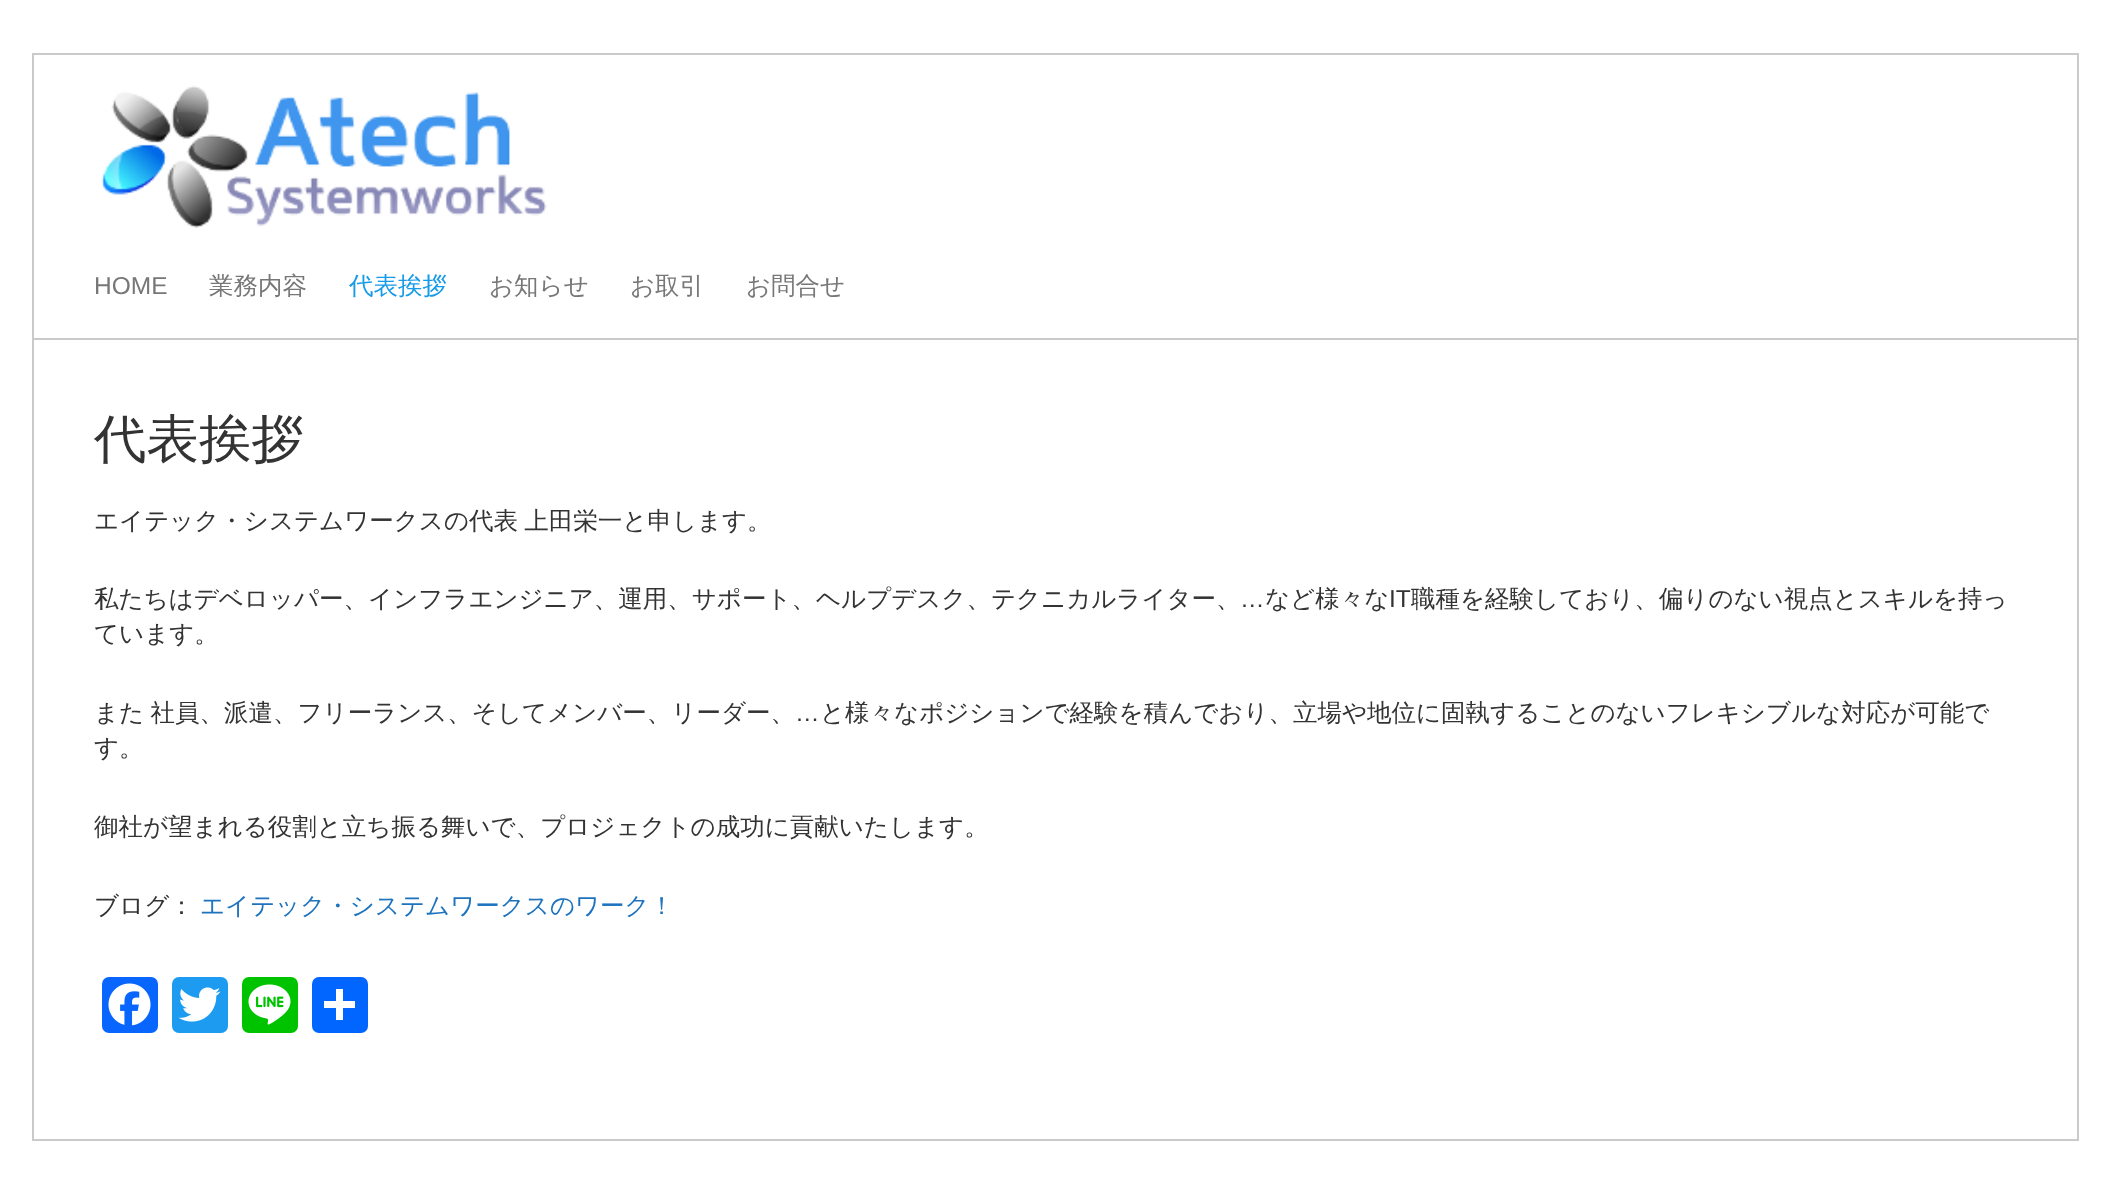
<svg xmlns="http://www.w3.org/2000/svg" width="2108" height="1184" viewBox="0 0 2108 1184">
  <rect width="100%" height="100%" fill="#fff"/>
  <path d="M33 54h2045v1086H33z" fill="none" stroke="#cacaca" stroke-width="2"/>
  <image x="101" y="85" width="446" height="143" href="img/1.png"/>
  <path d="M33 338h2046v2H33z" fill="#cacaca"/>
  <rect x="102" y="977" width="56" height="56" rx="7" fill="#0866ff"/>
  <image x="108" y="983" width="43" height="43" href="img/2.png"/>
  <rect x="172" y="977" width="56" height="56" rx="7" fill="#1d9bf0"/>
  <image x="178" y="987" width="43" height="35" href="img/3.png"/>
  <rect x="242" y="977" width="56" height="56" rx="7" fill="#00c300"/>
  <image x="248" y="984" width="43" height="41" href="img/4.png"/>
  <rect x="312" y="977" width="56" height="56" rx="7" fill="#0166ff"/>
  <path d="M336 989h7v31H336z" fill="#fff"/>
  <path d="M324 1001h31v7H324z" fill="#fff"/>
  <text x="94" y="294" font-family="Liberation Sans" font-size="24.5" fill="#777">HOME</text>
  <text x="209" y="294" font-family="WenQuanYi Zen Hei" font-size="24.5" font-weight="500" fill="#777">業務内容</text>
  <text x="349" y="294" font-family="WenQuanYi Zen Hei" font-size="24.5" font-weight="500" fill="#169be8">代表挨拶</text>
  <g font-family="WenQuanYi Zen Hei" font-size="24.5" font-weight="500" fill="#777">
    <text x="489" y="294">お知らせ</text>
    <text x="630" y="294">お取引</text>
    <text x="746" y="294">お問合せ</text>
  </g>
  <text x="94" y="457" font-family="WenQuanYi Zen Hei" font-size="52.5" font-weight="500" fill="#333">代表挨拶</text>
  <g font-family="WenQuanYi Zen Hei" font-size="24.5" font-weight="500" fill="#333">
    <text x="94" y="529" word-spacing="-1">エイテック・システムワークスの代表 上田栄一と申します。</text>
    <text x="94" y="607">私たちはデベロッパー、インフラエンジニア、運用、サポート、ヘルプデスク、テクニカルライター、</text>
  </g>
  <text x="1240" y="607" font-family="Liberation Sans" font-size="24.5" fill="#333">…</text>
  <text x="1265" y="607" font-family="WenQuanYi Zen Hei" font-size="24.5" font-weight="500" fill="#333">など様々な</text>
  <text x="1389" y="607" font-family="Liberation Sans" font-size="24.5" fill="#333">IT</text>
  <g font-family="WenQuanYi Zen Hei" font-size="24.5" font-weight="500" fill="#333">
    <text x="1411" y="607">職種を経験しており、偏りのない視点とスキルを持っ</text>
    <text x="94" y="642">ています。</text>
    <text x="94" y="721" word-spacing="-1">また 社員、派遣、フリーランス、そしてメンバー、リーダー、</text>
  </g>
  <text x="795" y="721" font-family="Liberation Sans" font-size="24.5" fill="#333">…</text>
  <g font-family="WenQuanYi Zen Hei" font-size="24.5" font-weight="500" fill="#333">
    <text x="820" y="721">と様々なポジションで経験を積んでおり、立場や地位に固執することのないフレキシブルな対応が可能で</text>
    <text x="94" y="756">す。</text>
    <text x="94" y="835">御社が望まれる役割と立ち振る舞いで、プロジェクトの成功に貢献いたします。</text>
    <text x="94" y="914">ブログ：</text>
  </g>
  <text x="200" y="914" font-family="WenQuanYi Zen Hei" font-size="24.5" font-weight="500" fill="#1e73be">エイテック・システムワークスのワーク！</text>
</svg>
